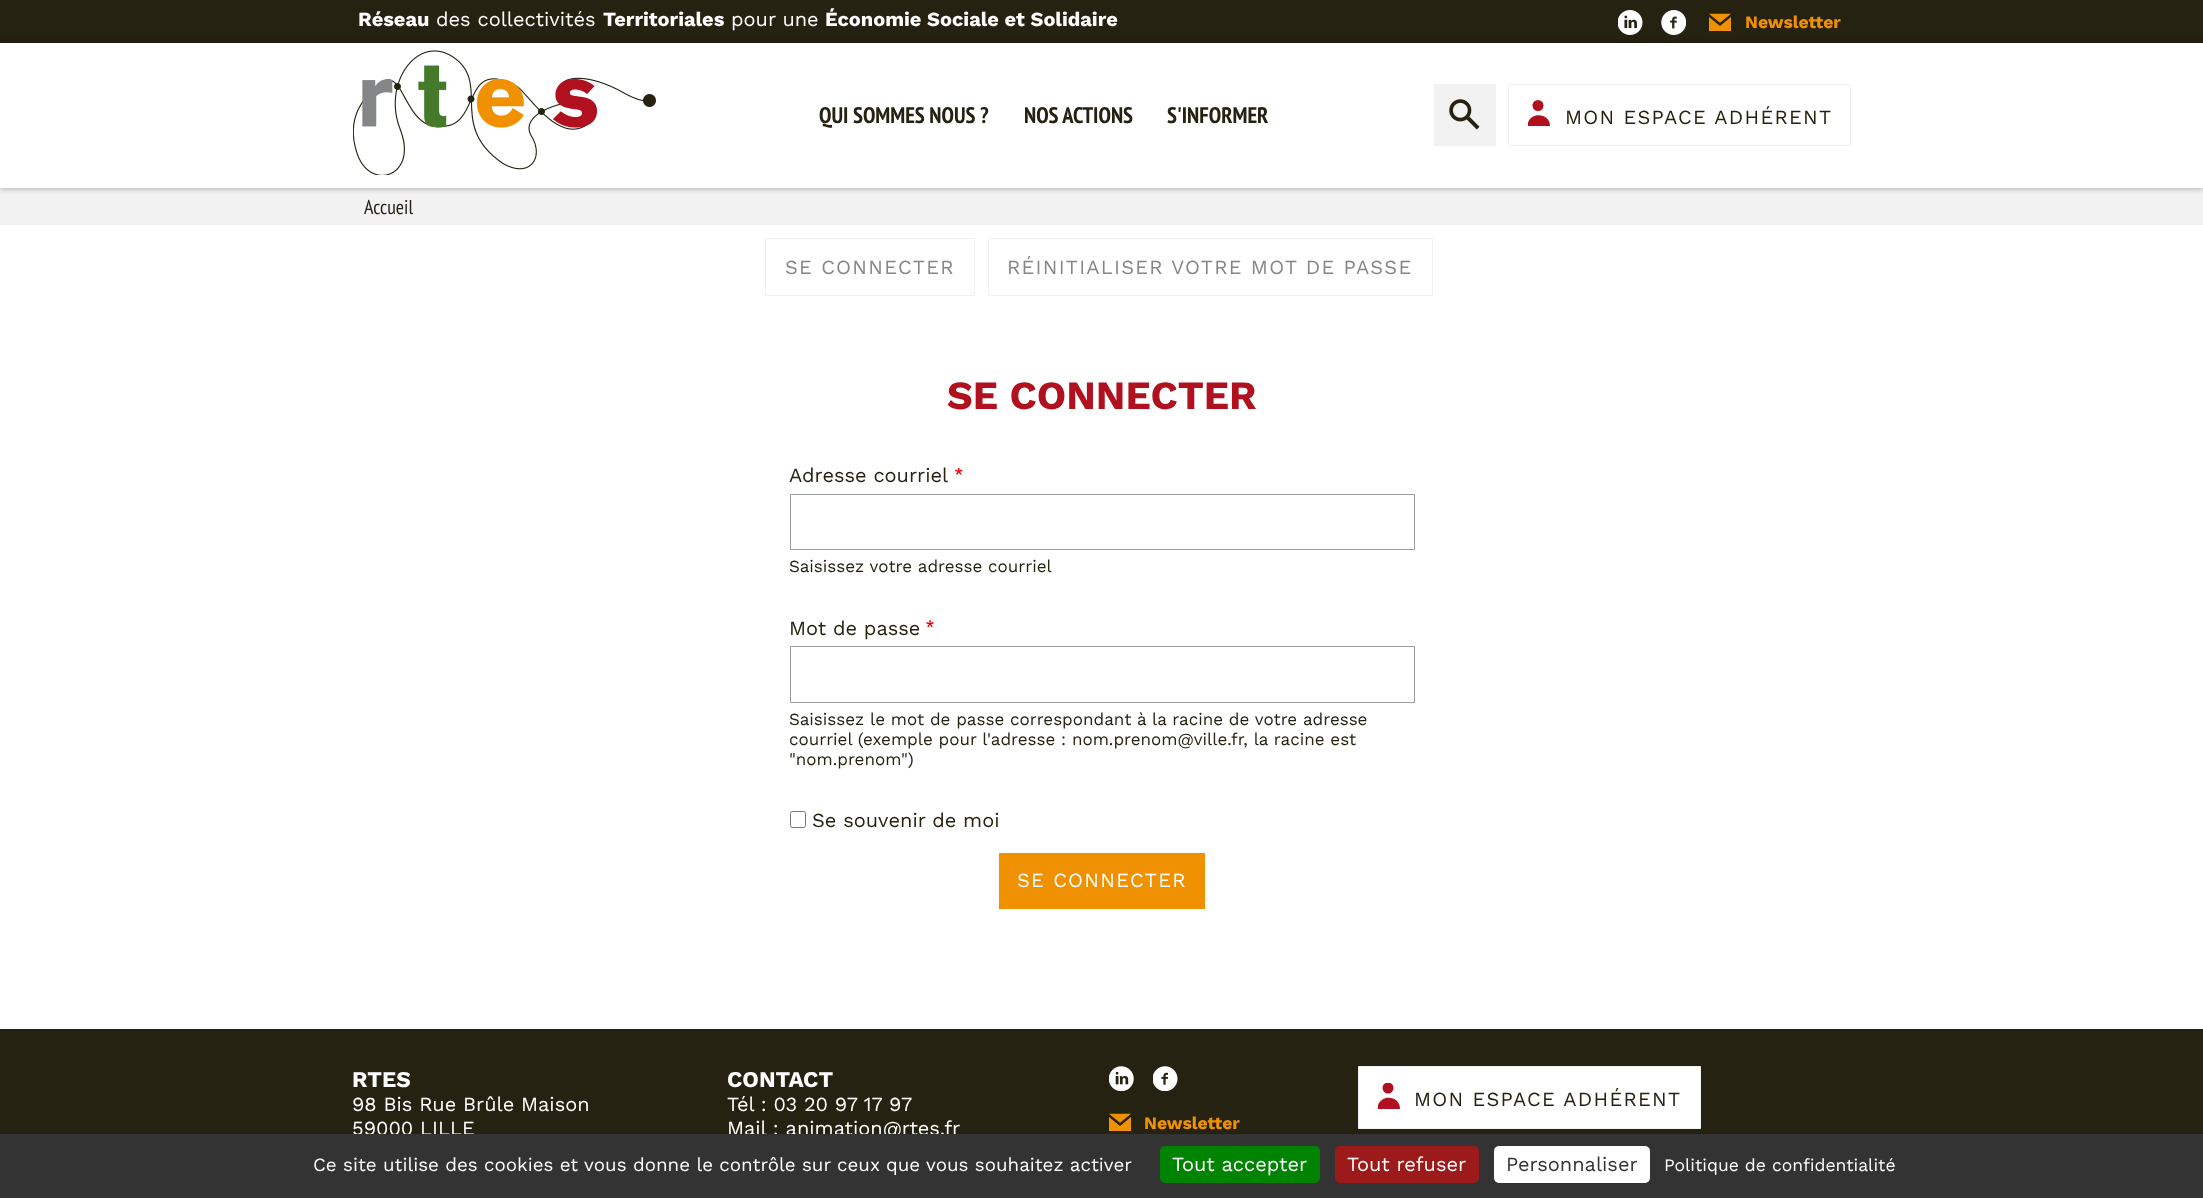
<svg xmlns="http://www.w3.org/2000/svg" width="2203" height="1198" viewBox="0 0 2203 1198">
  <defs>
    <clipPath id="clip1"><path d="M1528 100h22v26H1528z"/></clipPath>
    <clipPath id="clip2"><path d="M1378 1083h22v26H1378z"/></clipPath>
  </defs>
  <rect width="100%" height="100%" fill="#fff"/>
  <path d="M0 0h2203v43H0z" fill="#262212"/>
  <image x="1618" y="10" width="25" height="25" href="img/1.png"/>
  <image x="1661" y="10" width="25" height="25" href="img/2.png"/>
  <path d="M1709 17h22v14H1709z" fill="#f09102"/>
  <path d="M1705.5 12.5H1734.5L1720 24.5Z" fill="#f09102" fill-rule="evenodd" stroke="#262212" stroke-width="2.5"/>
  <path d="M0 188h2203v37H0z" fill="#f3f2f2"/>
  <path d="M0 43h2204v145H0z" fill="#00000059" filter="blur(3px)"/>
  <path d="M0 43h2203v145H0z" fill="#fff"/>
  <image x="353" y="50" width="303" height="125" href="img/3.png"/>
  <path d="M1434 84h62v62H1434z" fill="#f3f2f2"/>
  <image x="1449" y="99" width="31" height="31" href="img/4.png"/>
  <path d="M1508.5 84.5h342v61H1508.5z" fill="none" stroke="#f3f2f2"/>
  <circle cx="1538" cy="105.5" r="5.5" fill="#b1111e"/>
  <g clip-path="url(#clip1)">
    <path d="M1527.5 126C1527.5 111.5 1550 111.5 1550 126Z" fill="#b1111e" fill-rule="evenodd"/>
  </g>
  <path d="M765.5 238.5h209v57H765.5z" fill="none" stroke="#f3f2f2"/>
  <path d="M988.5 238.5h444v57H988.5z" fill="none" stroke="#f3f2f2"/>
  <image x="955" y="468" width="8" height="7" href="img/5.png"/>
  <path d="M790.5 494.5h624v55H790.5z" fill="none" stroke="#9c9d9e"/>
  <image x="926" y="620" width="8" height="8" href="img/6.png"/>
  <path d="M790.5 646.5h624v56H790.5z" fill="none" stroke="#9c9d9e"/>
  <rect x="790.5" y="811.5" width="15" height="16" rx="2" fill="none" stroke="#767676"/>
  <path d="M999 853h206v56H999z" fill="#f09102"/>
  <path d="M0 1029h2203v105H0z" fill="#262212"/>
  <path d="M1358.5 1066.5h342v62H1358.5z" fill="#fff" stroke="#f3f2f2"/>
  <g clip-path="url(#clip2)">
    <circle cx="1388" cy="1088" r="5.5" fill="#b1111e"/>
    <path d="M1377.5 1109C1377.5 1094 1400 1094 1400 1109Z" fill="#b1111e" fill-rule="evenodd"/>
  </g>
  <image x="1109" y="1066" width="25" height="25" href="img/7.png"/>
  <image x="1153" y="1066" width="25" height="25" href="img/8.png"/>
  <path d="M1109 1117h22v14H1109z" fill="#f09102"/>
  <path d="M1105.5 1112.5H1134.5L1120 1124.5Z" fill="#f09102" fill-rule="evenodd" stroke="#262212" stroke-width="2.5"/>
  <text x="358" y="26" font-family="Work Sans" font-size="20" font-weight="bold" fill="#fff">Réseau</text>
  <text x="436" y="26" font-family="Work Sans" font-size="20" fill="#fff">des collectivités</text>
  <text x="603" y="26" font-family="Work Sans" font-size="20" font-weight="bold" fill="#fff">Territoriales</text>
  <text x="731" y="26" font-family="Work Sans" font-size="20" fill="#fff">pour une</text>
  <text x="825" y="26" font-family="Work Sans" font-size="20" font-weight="bold" fill="#fff">Économie Sociale et Solidaire</text>
  <text x="1745" y="28" font-family="Work Sans" font-size="17.5" font-weight="bold" fill="#f09102">Newsletter</text>
  <g font-family="PT Sans Narrow" font-size="22.5" font-weight="bold" fill="#262212">
    <text x="819" y="123">QUI SOMMES NOUS ?</text>
    <text x="1024" y="123">NOS ACTIONS</text>
    <text x="1167" y="123">S'INFORMER</text>
  </g>
  <text x="1565" y="124" font-family="Work Sans" font-size="20" letter-spacing="1.25" fill="#262212">MON ESPACE ADHÉRENT</text>
  <text x="364" y="214" font-family="PT Sans Narrow" font-size="20" fill="#262212">Accueil</text>
  <g font-family="Work Sans" font-size="20" letter-spacing="1.25" fill="#858687">
    <text x="785" y="274">SE CONNECTER</text>
    <text x="1007" y="274">RÉINITIALISER VOTRE MOT DE PASSE</text>
  </g>
  <text x="947" y="409" font-family="Work Sans" font-size="40" font-weight="bold" fill="#b1111e">SE CONNECTER</text>
  <text x="789" y="482" font-family="Work Sans" font-size="20" fill="#262212">Adresse courriel</text>
  <text x="789" y="572" font-family="Work Sans" font-size="17" fill="#262212">Saisissez votre adresse courriel</text>
  <text x="789" y="635" font-family="Work Sans" font-size="20" fill="#262212">Mot de passe</text>
  <g font-family="Work Sans" font-size="17" fill="#262212">
    <text x="789" y="725">Saisissez le mot de passe correspondant à la racine de votre adresse</text>
    <text x="789" y="745">courriel (exemple pour l'adresse : nom.prenom@ville.fr, la racine est</text>
    <text x="789" y="765">"nom.prenom")</text>
  </g>
  <text x="812" y="827" font-family="Work Sans" font-size="20" fill="#262212">Se souvenir de moi</text>
  <text x="1017" y="887" font-family="Work Sans" font-size="20" letter-spacing="1.25" fill="#fff">SE CONNECTER</text>
  <text x="352" y="1087" font-family="Work Sans" font-size="22.5" font-weight="bold" fill="#fff">RTES</text>
  <g font-family="Work Sans" font-size="20" fill="#fff">
    <text x="352" y="1111">98 Bis Rue Brûle Maison</text>
    <text x="352" y="1135">59000 LILLE</text>
  </g>
  <text x="727" y="1087" font-family="Work Sans" font-size="22.5" font-weight="bold" fill="#fff">CONTACT</text>
  <g font-family="Work Sans" font-size="20" fill="#fff">
    <text x="727" y="1111">Tél : 03 20 97 17 97</text>
    <text x="727" y="1135">Mail : animation@rtes.fr</text>
  </g>
  <text x="1414" y="1106" font-family="Work Sans" font-size="20" letter-spacing="1.25" fill="#262212">MON ESPACE ADHÉRENT</text>
  <text x="1144" y="1129" font-family="Work Sans" font-size="17.5" font-weight="bold" fill="#f09102">Newsletter</text>
  <path d="M0 1134h2203v64H0z" fill="#333"/>
  <text x="313" y="1171" font-family="Work Sans" font-size="18.75" fill="#fff">Ce site utilise des cookies et vous donne le contrôle sur ceux que vous souhaitez activer</text>
  <rect x="1160" y="1146" width="160" height="37" rx="5" fill="#008300"/>
  <text x="1172" y="1171" font-family="Work Sans" font-size="20" fill="#fff">Tout accepter</text>
  <rect x="1335" y="1146" width="144" height="37" rx="5" fill="#9c1a1a"/>
  <text x="1347" y="1171" font-family="Work Sans" font-size="20" fill="#fff">Tout refuser</text>
  <rect x="1494" y="1146" width="156" height="37" rx="5" fill="#fff"/>
  <text x="1506" y="1171" font-family="Work Sans" font-size="20" fill="#333">Personnaliser</text>
  <text x="1664" y="1171" font-family="Work Sans" font-size="17.5" fill="#fff">Politique de confidentialité</text>
</svg>
